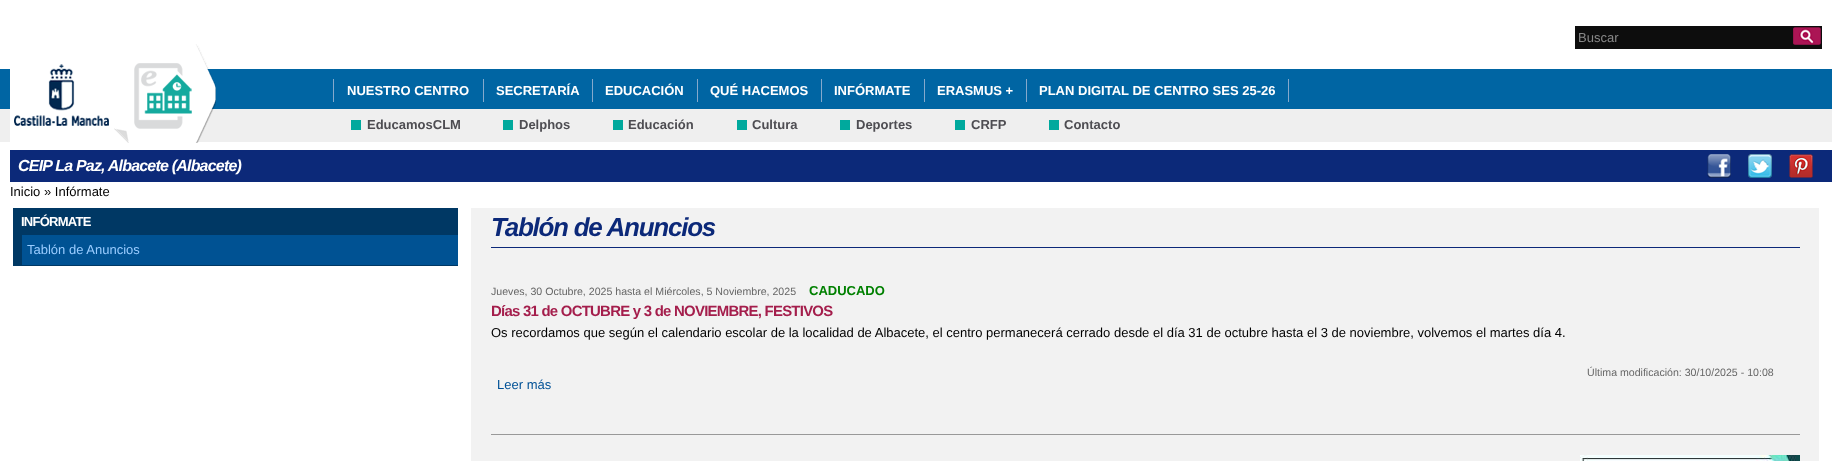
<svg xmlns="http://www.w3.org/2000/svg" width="1832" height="461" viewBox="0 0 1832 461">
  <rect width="100%" height="100%" fill="#fff"/>
  <path d="M1575 26h247v23H1575z" fill="#0d0d0d"/>
  <image x="1793" y="27" width="28" height="18" href="img/1.png"/>
  <path d="M0 69h1832v40H0z" fill="#0065a3"/>
  <path d="M0 109h1832v33H0z" fill="#efefef"/>
  <image x="10" y="64" width="118" height="78" href="img/2.png"/>
  <image x="114" y="44" width="102" height="99" href="img/3.png"/>
  <path d="M483 79h1v23H483z" fill="#85a9cc"/>
  <path d="M333 79h1v23H333z" fill="#85a9cc"/>
  <path d="M592 79h1v23H592z" fill="#85a9cc"/>
  <path d="M697 79h1v23H697z" fill="#85a9cc"/>
  <path d="M821 79h1v23H821z" fill="#85a9cc"/>
  <path d="M924 79h1v23H924z" fill="#85a9cc"/>
  <path d="M1026 79h1v23H1026z" fill="#85a9cc"/>
  <path d="M1288 79h1v23H1288z" fill="#85a9cc"/>
  <path d="M351 120h10v10H351z" fill="#00a99d"/>
  <path d="M503 120h10v10H503z" fill="#00a99d"/>
  <path d="M613 120h10v10H613z" fill="#00a99d"/>
  <path d="M737 120h10v10H737z" fill="#00a99d"/>
  <path d="M840 120h10v10H840z" fill="#00a99d"/>
  <path d="M955 120h10v10H955z" fill="#00a99d"/>
  <path d="M1049 120h10v10H1049z" fill="#00a99d"/>
  <path d="M10 150h1822v32H10z" fill="#0c2979"/>
  <image x="1707" y="154" width="24" height="24" href="img/4.png"/>
  <image x="1748" y="154" width="24" height="24" href="img/5.png"/>
  <image x="1789" y="154" width="24" height="24" href="img/6.png"/>
  <path d="M13 208h445v58H13z" fill="#003864"/>
  <path d="M22 235h436v30H22z" fill="#005293"/>
  <path d="M471 208h1348v253H471z" fill="#f2f2f2"/>
  <path d="M491 247h1309v1H491z" fill="#0c2979"/>
  <path d="M491 434h1309v1H491z" fill="#999"/>
  <image x="1580" y="455" width="220" height="6" href="img/7.png"/>
  <text x="1578" y="42" font-family="Liberation Sans" font-size="13" fill="#888">Buscar</text>
  <g font-family="Liberation Sans" font-size="13" font-weight="bold" fill="#fff">
    <text x="347" y="95">NUESTRO CENTRO</text>
    <text x="496" y="95">SECRETARÍA</text>
    <text x="605" y="95">EDUCACIÓN</text>
    <text x="710" y="95">QUÉ HACEMOS</text>
    <text x="834" y="95">INFÓRMATE</text>
    <text x="937" y="95">ERASMUS +</text>
    <text x="1039" y="95">PLAN DIGITAL DE CENTRO SES 25-26</text>
  </g>
  <g font-family="Liberation Sans" font-size="13" font-weight="bold" fill="#4e4d52">
    <text x="367" y="129">EducamosCLM</text>
    <text x="519" y="129">Delphos</text>
    <text x="628" y="129">Educación</text>
    <text x="752" y="129">Cultura</text>
    <text x="856" y="129">Deportes</text>
    <text x="971" y="129">CRFP</text>
    <text x="1064" y="129">Contacto</text>
  </g>
  <text x="18" y="171" font-family="Liberation Sans" font-size="16" font-weight="bold" font-style="italic" letter-spacing="-0.8" fill="#fff">CEIP La Paz, Albacete (Albacete)</text>
  <text x="10" y="196" font-family="Liberation Sans" font-size="13" fill="#000">Inicio » Infórmate</text>
  <text x="21" y="226" font-family="Liberation Sans" font-size="13" font-weight="bold" letter-spacing="-0.75" fill="#fff">INFÓRMATE</text>
  <text x="27" y="254" font-family="Liberation Sans" font-size="13" fill="#9cf">Tablón de Anuncios</text>
  <text x="491" y="236" font-family="Liberation Sans" font-size="26" font-weight="bold" font-style="italic" letter-spacing="-1.25" fill="#0c2979">Tablón de Anuncios</text>
  <text x="491" y="295" font-family="Liberation Sans" font-size="10.6" fill="#666">Jueves, 30 Octubre, 2025 hasta el Miércoles, 5 Noviembre, 2025</text>
  <text x="809" y="295" font-family="Liberation Sans" font-size="13" font-weight="bold" fill="#008000">CADUCADO</text>
  <text x="491" y="316" font-family="Liberation Sans" font-size="14.95" font-weight="bold" letter-spacing="-0.75" fill="#a41e4c">Días 31 de OCTUBRE y 3 de NOVIEMBRE, FESTIVOS</text>
  <text x="491" y="337" font-family="Liberation Sans" font-size="13" fill="#000">Os recordamos que según el calendario escolar de la localidad de Albacete, el centro permanecerá cerrado desde el día 31 de octubre hasta el 3 de noviembre, volvemos el martes día 4.</text>
  <text x="1587" y="376" font-family="Liberation Sans" font-size="10.6" fill="#666">Última modificación: 30/10/2025 - 10:08</text>
  <text x="497" y="389" font-family="Liberation Sans" font-size="13" fill="#005196">Leer más</text>
</svg>
